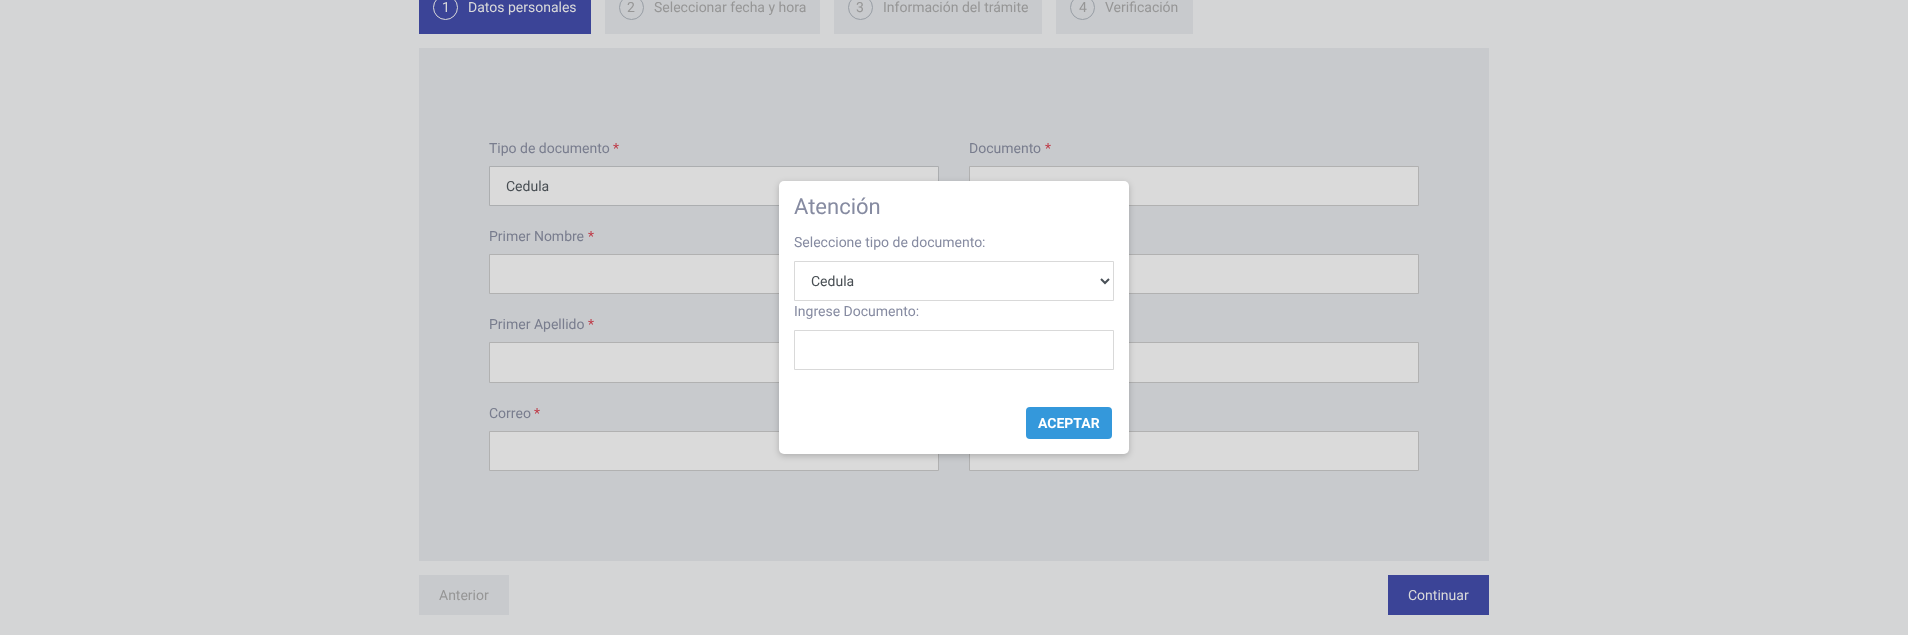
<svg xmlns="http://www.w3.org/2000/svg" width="1908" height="635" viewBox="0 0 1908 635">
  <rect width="100%" height="100%" fill="#d4d5d6"/>
  <path d="M419 0h172v34H419z" fill="#3b4497"/>
  <circle cx="445.5" cy="7.5" r="12" fill="none" stroke="#dadada"/>
  <path d="M605 0h215v34H605z" fill="#c8cacd"/>
  <circle cx="631.5" cy="7.5" r="12" fill="none" stroke="#989ea5"/>
  <path d="M834 0h208v34H834z" fill="#c8cacd"/>
  <circle cx="860.5" cy="7.5" r="12" fill="none" stroke="#989ea5"/>
  <path d="M1056 0h137v34H1056z" fill="#c8cacd"/>
  <circle cx="1082.5" cy="7.5" r="12" fill="none" stroke="#989ea5"/>
  <path d="M419 48h1070v513H419z" fill="#c8cacd"/>
  <path d="M489.5 166.5h449v39H489.5z" fill="#dadada" stroke="#acaeb0"/>
  <path d="M969.5 166.5h449v39H969.5z" fill="#dadada" stroke="#b1b1b1"/>
  <path d="M490 255h289v38H490z" fill="#dadada"/>
  <path d="M489.5 254.5h449v39H489.5z" fill="none" stroke="#b1b1b1"/>
  <path d="M1129 255h289v38H1129z" fill="#dadada"/>
  <path d="M969.5 254.5h449v39H969.5z" fill="none" stroke="#b1b1b1"/>
  <path d="M490 343h289v39H490z" fill="#dadada"/>
  <path d="M489.5 342.5h449v40H489.5z" fill="none" stroke="#b1b1b1"/>
  <path d="M1129 343h289v39H1129z" fill="#dadada"/>
  <path d="M969.5 342.5h449v40H969.5z" fill="none" stroke="#b1b1b1"/>
  <path d="M489.5 431.5h449v39H489.5z" fill="#dadada" stroke="#b1b1b1"/>
  <path d="M969.5 431.5h449v39H969.5z" fill="#dadada" stroke="#b1b1b1"/>
  <path d="M419 575h90v40H419z" fill="#c8cacd"/>
  <path d="M1388 575h101v40H1388z" fill="#3b4497"/>
  <rect x="779" y="183" width="350" height="273" rx="5" fill="#00000033" filter="blur(3px)"/>
  <rect x="779" y="181" width="350" height="273" rx="5" fill="#fff"/>
  <path d="M794.5 261.5h319v39H794.5z" fill="none" stroke="#d9d9d9"/>
  <path d="M1101 279L1105 283L1109 279" fill="none" stroke="#495057" stroke-width="2"/>
  <path d="M794.5 330.5h319v39H794.5z" fill="none" stroke="#d9d9d9"/>
  <rect x="1026" y="407" width="86" height="32" rx="4" fill="#3498db"/>
  <g font-family="Roboto" font-size="14" fill="#dadada">
    <text x="442" y="12">1</text>
    <text x="468" y="12">Datos personales</text>
  </g>
  <g font-family="Roboto" font-size="14" fill="#969696">
    <text x="627" y="12">2</text>
    <text x="654" y="12">Seleccionar fecha y hora</text>
    <text x="856" y="12">3</text>
    <text x="883" y="12">Información del trámite</text>
    <text x="1079" y="12">4</text>
    <text x="1105" y="12">Verificación</text>
  </g>
  <text x="489" y="153" font-family="Roboto" font-size="14" fill="#797d8e">Tipo de documento</text>
  <text x="613" y="153" font-family="Roboto" font-size="14" fill="#be3845">*</text>
  <text x="506" y="191" font-family="Roboto" font-size="14" fill="#484e53">Cedula</text>
  <text x="969" y="153" font-family="Roboto" font-size="14" fill="#797d8e">Documento</text>
  <text x="1045" y="153" font-family="Roboto" font-size="14" fill="#be3845">*</text>
  <text x="489" y="241" font-family="Roboto" font-size="14" fill="#797d8e">Primer Nombre</text>
  <text x="588" y="241" font-family="Roboto" font-size="14" fill="#be3845">*</text>
  <text x="489" y="329" font-family="Roboto" font-size="14" fill="#797d8e">Primer Apellido</text>
  <text x="588" y="329" font-family="Roboto" font-size="14" fill="#be3845">*</text>
  <text x="489" y="418" font-family="Roboto" font-size="14" fill="#797d8e">Correo</text>
  <text x="534" y="418" font-family="Roboto" font-size="14" fill="#be3845">*</text>
  <text x="439" y="600" font-family="Roboto" font-size="14" fill="#969696">Anterior</text>
  <text x="1408" y="600" font-family="Roboto" font-size="14" fill="#dadada">Continuar</text>
  <text x="794" y="214" font-family="Roboto" font-size="22" fill="#868ba1">Atención</text>
  <text x="794" y="247" font-family="Roboto" font-size="14" fill="#868ba1">Seleccione tipo de documento:</text>
  <text x="811" y="286" font-family="Roboto" font-size="14" fill="#484e53">Cedula</text>
  <text x="794" y="316" font-family="Roboto" font-size="14" fill="#868ba1">Ingrese Documento:</text>
  <text x="1038" y="428" font-family="Roboto" font-size="14" font-weight="bold" fill="#fff">ACEPTAR</text>
</svg>
